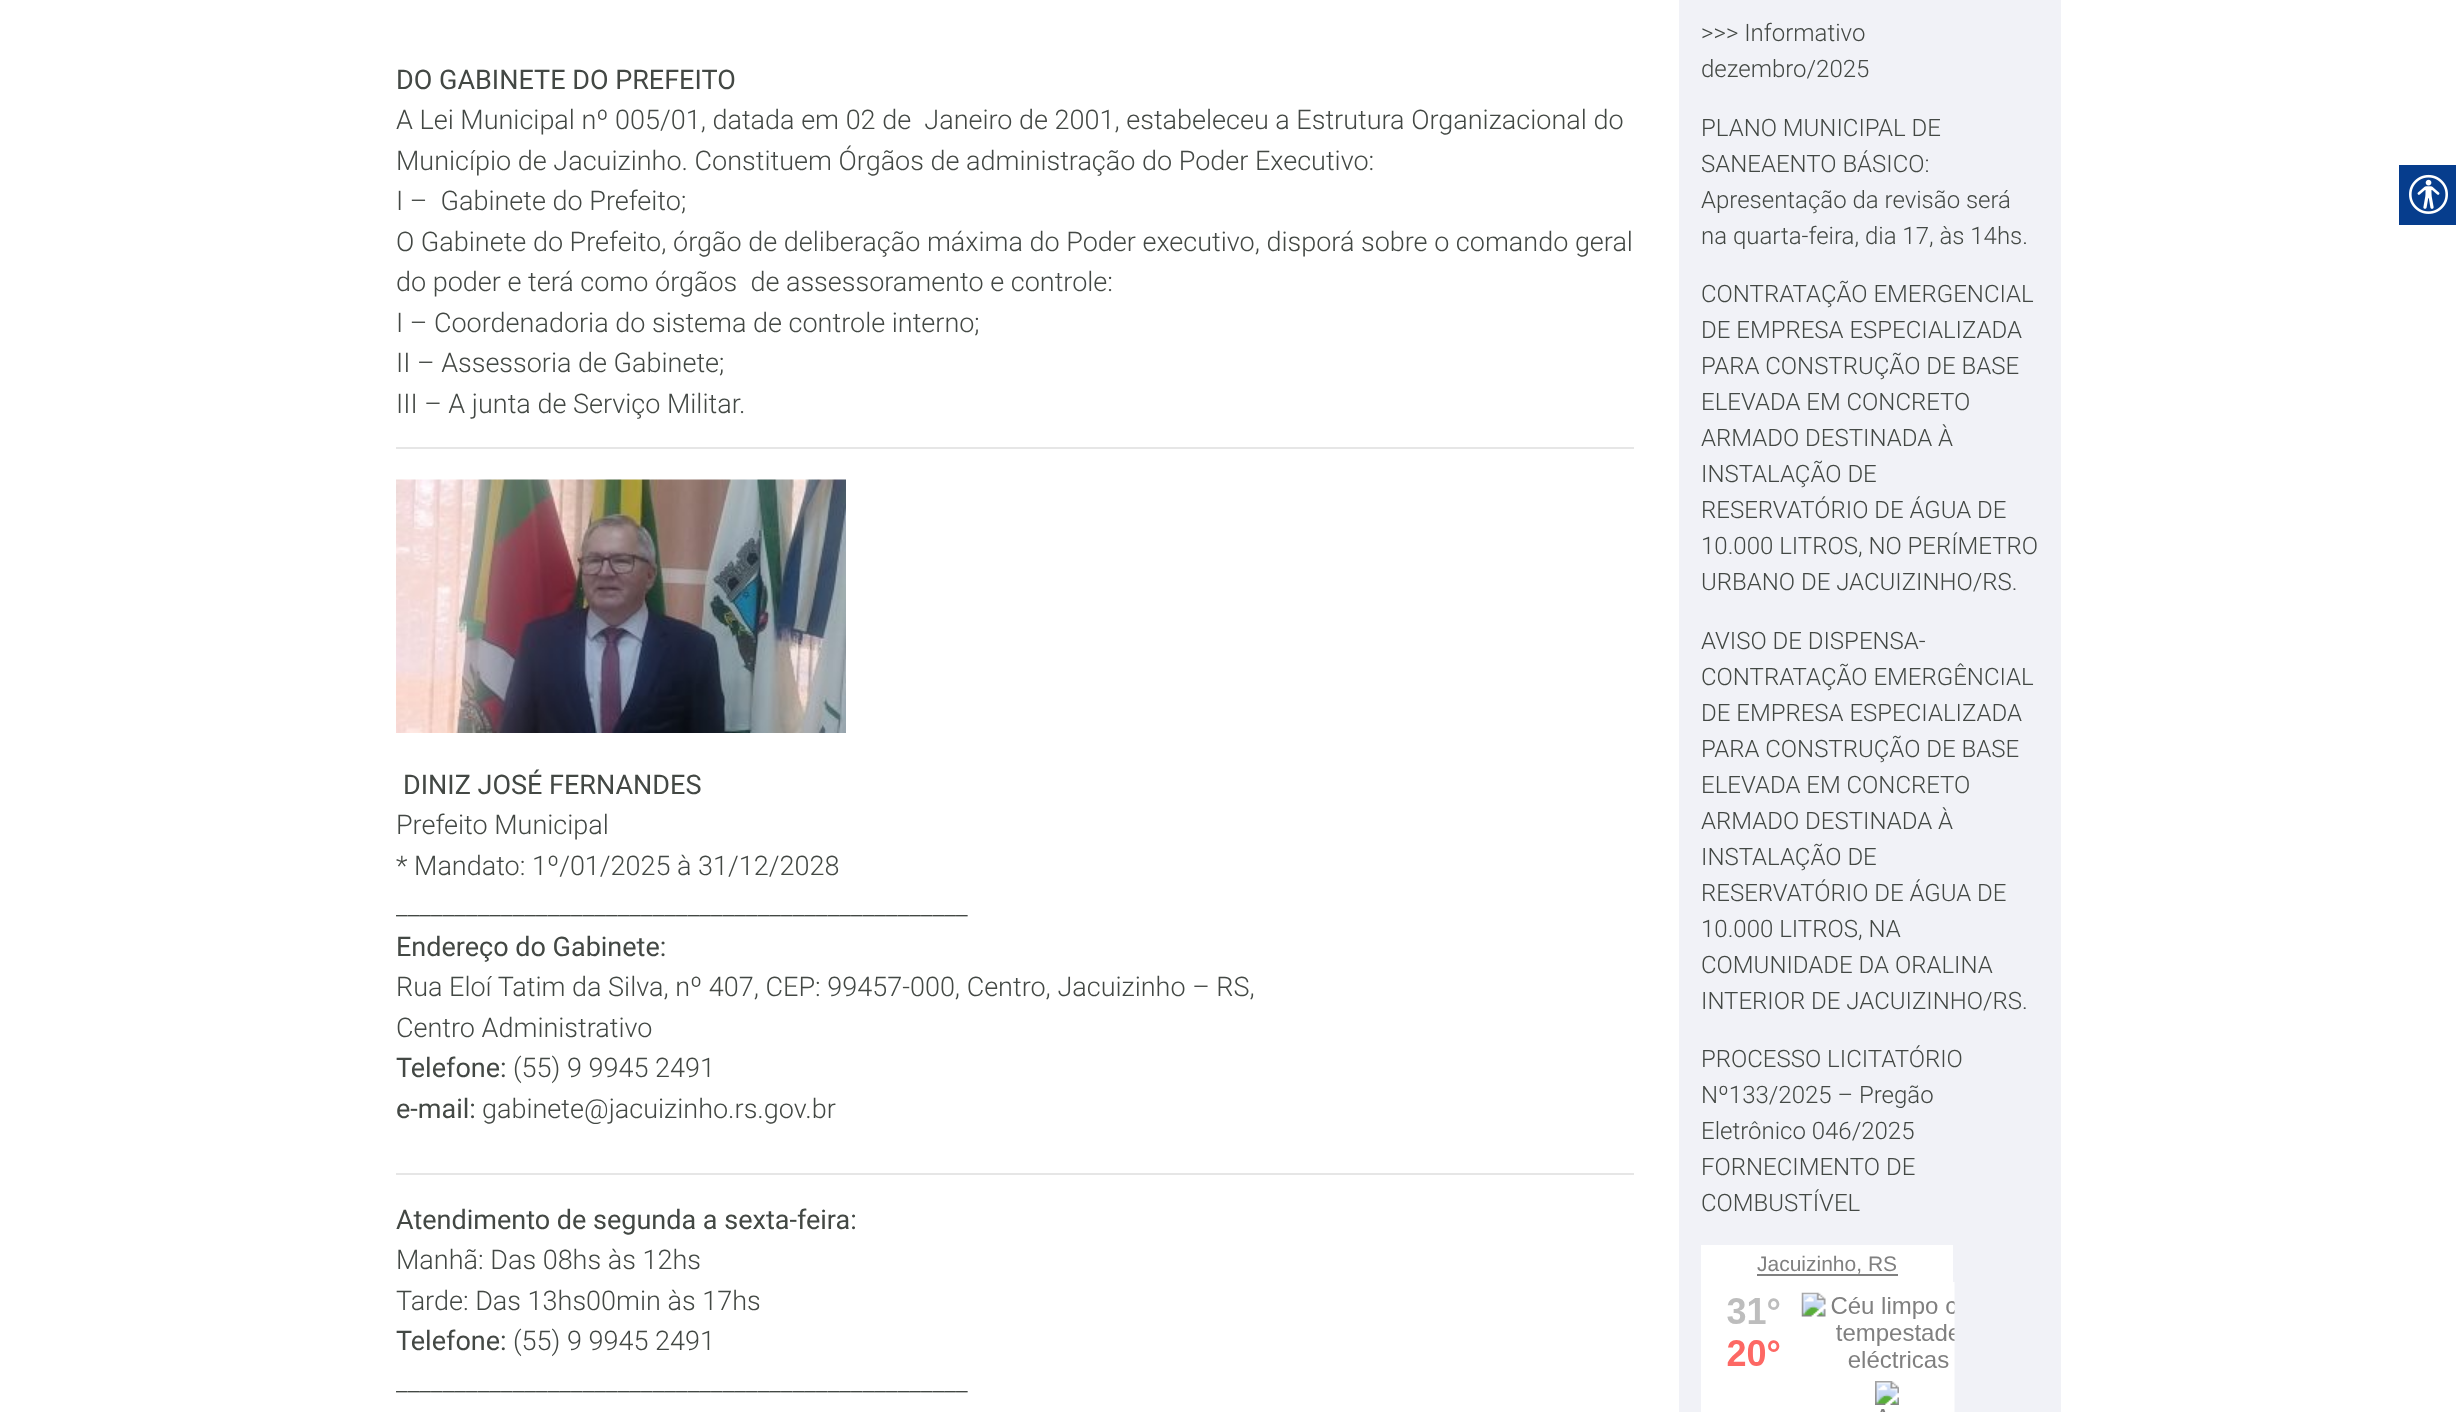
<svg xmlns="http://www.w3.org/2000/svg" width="2456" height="1412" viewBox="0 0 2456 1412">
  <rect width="100%" height="100%" fill="#fff"/>
  <path d="M396 447h1238v2H396z" fill="#e6e6e6"/>
  <image x="396" y="479" width="450" height="254" href="img/1.png"/>
  <path d="M396 1173h1238v2H396z" fill="#e6e6e6"/>
  <path d="M1679 0h382v1412H1679z" fill="#f1f2f7"/>
  <path d="M1701 1245h252v167H1701z" fill="#fff"/>
  <path d="M1757 1274h141v2H1757z" fill="#808080"/>
  <image x="1727" y="1282" width="228" height="130" href="img/2.png"/>
  <path d="M2399 165h57v60H2399z" fill="#063d8d"/>
  <image x="2409" y="174" width="39" height="40" href="img/3.png"/>
  <text x="396" y="89" font-family="Roboto" font-size="27" fill="#434844">DO GABINETE DO PREFEITO</text>
  <g font-family="Roboto" font-size="27" font-weight="300" fill="#434844">
    <text x="396" y="129" xml:space="preserve">A Lei Municipal nº 005/01, datada em 02 de  Janeiro de 2001, estabeleceu a Estrutura Organizacional do</text>
    <text x="396" y="170">Município de Jacuizinho. Constituem Órgãos de administração do Poder Executivo:</text>
    <text x="396" y="210" xml:space="preserve">I –  Gabinete do Prefeito;</text>
    <text x="396" y="251">O Gabinete do Prefeito, órgão de deliberação máxima do Poder executivo, disporá sobre o comando geral</text>
    <text x="396" y="291" xml:space="preserve">do poder e terá como órgãos  de assessoramento e controle:</text>
    <text x="396" y="332">I – Coordenadoria do sistema de controle interno;</text>
    <text x="396" y="372">II – Assessoria de Gabinete;</text>
    <text x="396" y="413">III – A junta de Serviço Militar.</text>
  </g>
  <text x="403" y="794" font-family="Roboto" font-size="27" fill="#434844">DINIZ JOSÉ FERNANDES</text>
  <g font-family="Roboto" font-size="27" font-weight="300" fill="#434844">
    <text x="396" y="834">Prefeito Municipal</text>
    <text x="396" y="875">* Mandato: 1º/01/2025 à 31/12/2028</text>
    <text x="396" y="915">_________________________________________________</text>
  </g>
  <text x="396" y="956" font-family="Roboto" font-size="27" fill="#434844">Endereço do Gabinete:</text>
  <g font-family="Roboto" font-size="27" font-weight="300" fill="#434844">
    <text x="396" y="996">Rua Eloí Tatim da Silva, nº 407, CEP: 99457-000, Centro, Jacuizinho – RS,</text>
    <text x="396" y="1037">Centro Administrativo</text>
  </g>
  <text x="396" y="1077" font-family="Roboto" font-size="27" fill="#434844">Telefone:</text>
  <text x="513" y="1077" font-family="Roboto" font-size="27" font-weight="300" fill="#434844">(55) 9 9945 2491</text>
  <text x="396" y="1118" font-family="Roboto" font-size="27" fill="#434844">e-mail:</text>
  <text x="482" y="1118" font-family="Roboto" font-size="27" font-weight="300" fill="#434844">gabinete@jacuizinho.rs.gov.br</text>
  <text x="396" y="1229" font-family="Roboto" font-size="27" fill="#434844">Atendimento de segunda a sexta-feira:</text>
  <g font-family="Roboto" font-size="27" font-weight="300" fill="#434844">
    <text x="396" y="1269">Manhã: Das 08hs às 12hs</text>
    <text x="396" y="1310">Tarde: Das 13hs00min às 17hs</text>
  </g>
  <text x="396" y="1350" font-family="Roboto" font-size="27" fill="#434844">Telefone:</text>
  <g font-family="Roboto" font-size="27" font-weight="300" fill="#434844">
    <text x="513" y="1350">(55) 9 9945 2491</text>
    <text x="396" y="1391">_________________________________________________</text>
  </g>
  <g font-family="Roboto" font-size="24" font-weight="300" fill="#434844">
    <text x="1701" y="41">&gt;&gt;&gt; Informativo</text>
    <text x="1701" y="77">dezembro/2025</text>
    <text x="1701" y="136">PLANO MUNICIPAL DE</text>
    <text x="1701" y="172">SANEAENTO BÁSICO:</text>
    <text x="1701" y="208">Apresentação da revisão será</text>
    <text x="1701" y="244">na quarta-feira, dia 17, às 14hs.</text>
    <text x="1701" y="302">CONTRATAÇÃO EMERGENCIAL</text>
    <text x="1701" y="338">DE EMPRESA ESPECIALIZADA</text>
    <text x="1701" y="374">PARA CONSTRUÇÃO DE BASE</text>
    <text x="1701" y="410">ELEVADA EM CONCRETO</text>
    <text x="1701" y="446">ARMADO DESTINADA À</text>
    <text x="1701" y="482">INSTALAÇÃO DE</text>
    <text x="1701" y="518">RESERVATÓRIO DE ÁGUA DE</text>
    <text x="1701" y="554">10.000 LITROS, NO PERÍMETRO</text>
    <text x="1701" y="590">URBANO DE JACUIZINHO/RS.</text>
    <text x="1701" y="649">AVISO DE DISPENSA-</text>
    <text x="1701" y="685">CONTRATAÇÃO EMERGÊNCIAL</text>
    <text x="1701" y="721">DE EMPRESA ESPECIALIZADA</text>
    <text x="1701" y="757">PARA CONSTRUÇÃO DE BASE</text>
    <text x="1701" y="793">ELEVADA EM CONCRETO</text>
    <text x="1701" y="829">ARMADO DESTINADA À</text>
    <text x="1701" y="865">INSTALAÇÃO DE</text>
    <text x="1701" y="901">RESERVATÓRIO DE ÁGUA DE</text>
    <text x="1701" y="937">10.000 LITROS, NA</text>
    <text x="1701" y="973">COMUNIDADE DA ORALINA</text>
    <text x="1701" y="1009">INTERIOR DE JACUIZINHO/RS.</text>
    <text x="1701" y="1067">PROCESSO LICITATÓRIO</text>
    <text x="1701" y="1103">Nº133/2025 – Pregão</text>
    <text x="1701" y="1139">Eletrônico 046/2025</text>
    <text x="1701" y="1175">FORNECIMENTO DE</text>
    <text x="1701" y="1211">COMBUSTÍVEL</text>
  </g>
  <text x="1757" y="1271" font-family="Liberation Sans" font-size="21" fill="#808080">Jacuizinho, RS</text>
</svg>
